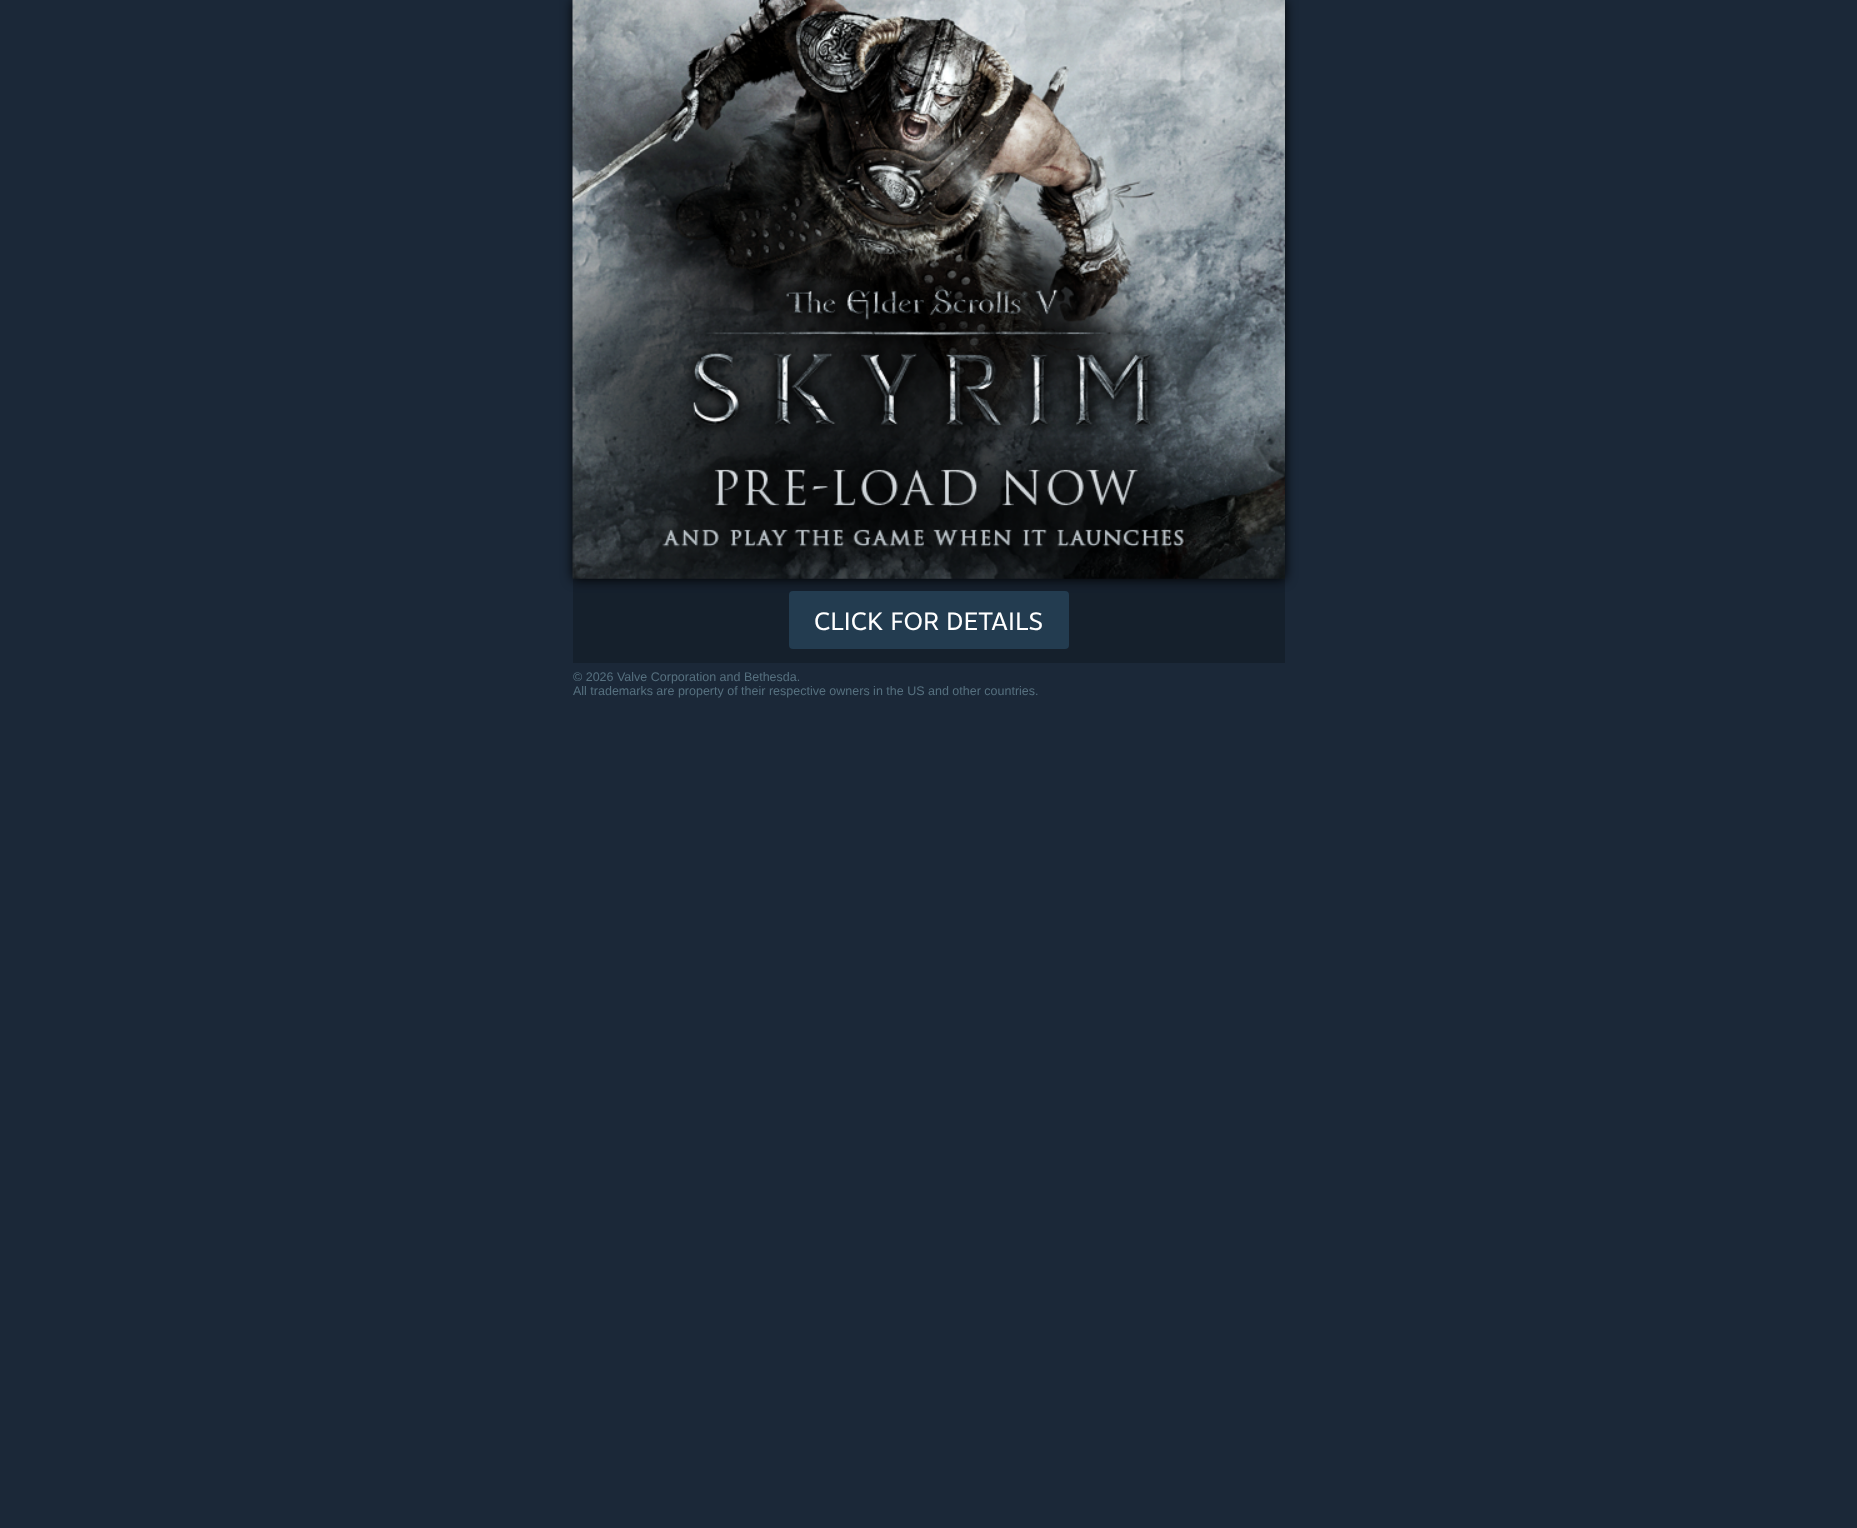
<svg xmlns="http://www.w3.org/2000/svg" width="1857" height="1528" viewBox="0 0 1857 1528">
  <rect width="100%" height="100%" fill="#1b2838"/>
  <path d="M573 0h712v579H573z" fill="#000" filter="blur(6px)"/>
  <image x="572" y="0" width="713" height="579" href="img/1.png"/>
  <path d="M573 579h712v84H573z" fill="#00000033"/>
  <rect x="789" y="591" width="280" height="58" rx="4" fill="#233c50"/>
  <text x="814" y="630" font-family="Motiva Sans" font-size="25" fill="#fff">CLICK FOR DETAILS</text>
  <g font-family="Liberation Sans" font-size="12.5" fill="#56707f">
    <text x="573" y="681">© 2026 Valve Corporation and Bethesda.</text>
    <text x="573" y="695">All trademarks are property of their respective owners in the US and other countries.</text>
  </g>
</svg>
